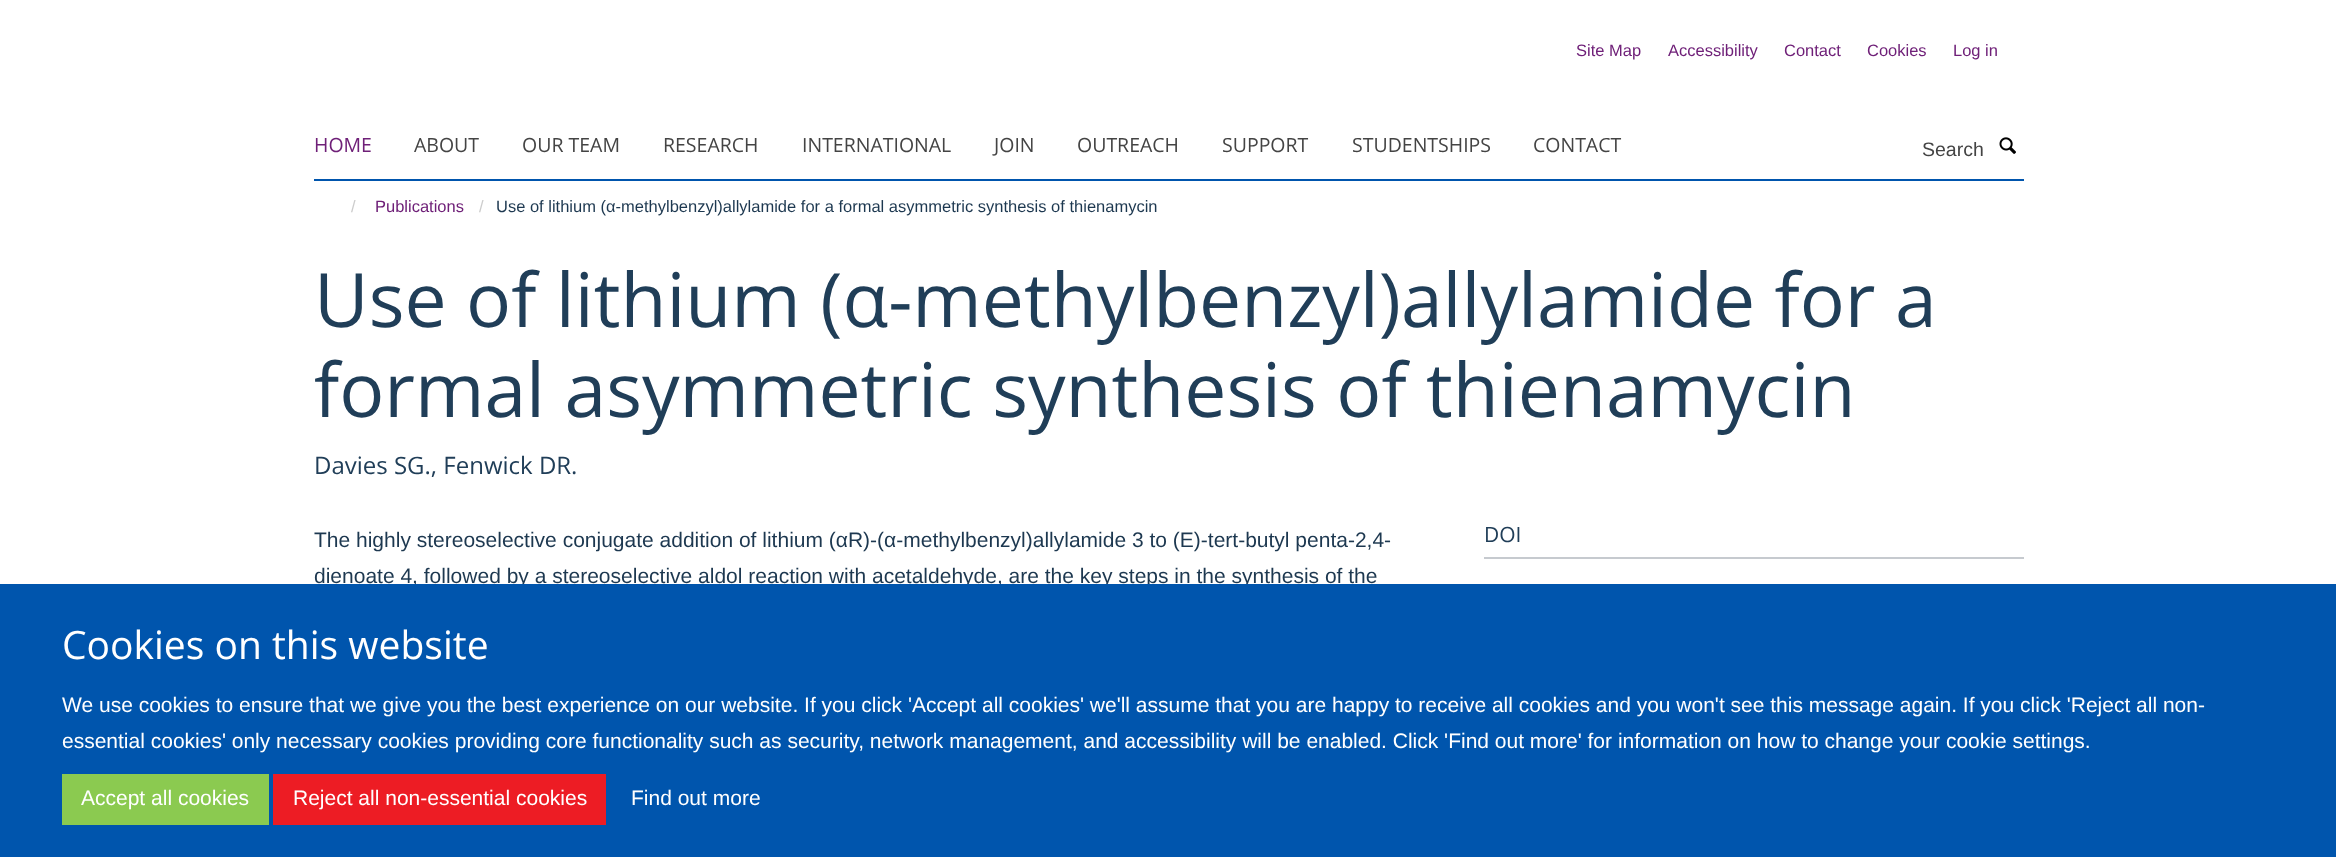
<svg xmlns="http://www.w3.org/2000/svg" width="2336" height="857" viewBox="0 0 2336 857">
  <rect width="100%" height="100%" fill="#fff"/>
  <path d="M314 179h1710v2H314z" fill="#0055ad"/>
  <image x="1999" y="137" width="17" height="17" href="img/1.png"/>
  <path d="M1484 557h540v2H1484z" fill="#c6cacf"/>
  <g font-family="Liberation Sans" font-size="16.5" fill="#6f2078">
    <text x="1576" y="56">Site Map</text>
    <text x="1668" y="56">Accessibility</text>
    <text x="1784" y="56">Contact</text>
    <text x="1867" y="56">Cookies</text>
    <text x="1953" y="56">Log in</text>
  </g>
  <text x="314" y="152" font-family="Open Sans" font-size="19.5" fill="#6f2078">HOME</text>
  <g font-family="Open Sans" font-size="19.5" fill="#444">
    <text x="414" y="152">ABOUT</text>
    <text x="522" y="152">OUR TEAM</text>
    <text x="663" y="152">RESEARCH</text>
    <text x="802" y="152">INTERNATIONAL</text>
    <text x="994" y="152">JOIN</text>
    <text x="1077" y="152">OUTREACH</text>
    <text x="1222" y="152">SUPPORT</text>
    <text x="1352" y="152">STUDENTSHIPS</text>
    <text x="1533" y="152">CONTACT</text>
  </g>
  <text x="1922" y="156" font-family="Liberation Sans" font-size="19.5" fill="#444">Search</text>
  <text x="351" y="212" font-family="Liberation Sans" font-size="16.5" fill="#ccc">/</text>
  <text x="375" y="212" font-family="Liberation Sans" font-size="16.5" fill="#6f2078">Publications</text>
  <text x="479" y="212" font-family="Liberation Sans" font-size="16.5" fill="#ccc">/</text>
  <text x="496" y="212" font-family="Liberation Sans" font-size="16.5" fill="#1d3850">Use of lithium (α-methylbenzyl)allylamide for a formal asymmetric synthesis of thienamycin</text>
  <g font-family="Open Sans" font-size="75" fill="#203e58">
    <text x="314" y="327">Use of lithium (α-methylbenzyl)allylamide for a</text>
    <text x="314" y="417">formal asymmetric synthesis of thienamycin</text>
  </g>
  <text x="314" y="474" font-family="Open Sans" font-size="24" fill="#203e58">Davies SG., Fenwick DR.</text>
  <g font-family="Liberation Sans" font-size="21" fill="#1d3850">
    <text x="314" y="547">The highly stereoselective conjugate addition of lithium (αR)-(α-methylbenzyl)allylamide 3 to (E)-tert-butyl penta-2,4-</text>
    <text x="314" y="583">dienoate 4, followed by a stereoselective aldol reaction with acetaldehyde, are the key steps in the synthesis of the</text>
  </g>
  <text x="1484" y="542" font-family="Open Sans" font-size="21" fill="#203e58">DOI</text>
  <path d="M0 584h2336v273H0z" fill="#0055ad"/>
  <text x="62" y="659" font-family="Open Sans" font-size="39" fill="#fff">Cookies on this website</text>
  <g font-family="Liberation Sans" font-size="21" fill="#fff">
    <text x="62" y="712">We use cookies to ensure that we give you the best experience on our website. If you click 'Accept all cookies' we'll assume that you are happy to receive all cookies and you won't see this message again. If you click 'Reject all non-</text>
    <text x="62" y="748">essential cookies' only necessary cookies providing core functionality such as security, network management, and accessibility will be enabled. Click 'Find out more' for information on how to change your cookie settings.</text>
  </g>
  <path d="M62 774h207v51H62z" fill="#8bca50"/>
  <text x="81" y="805" font-family="Liberation Sans" font-size="21" fill="#fff">Accept all cookies</text>
  <path d="M273 774h333v51H273z" fill="#ed1c24"/>
  <g font-family="Liberation Sans" font-size="21" fill="#fff">
    <text x="293" y="805">Reject all non-essential cookies</text>
    <text x="631" y="805">Find out more</text>
  </g>
</svg>
